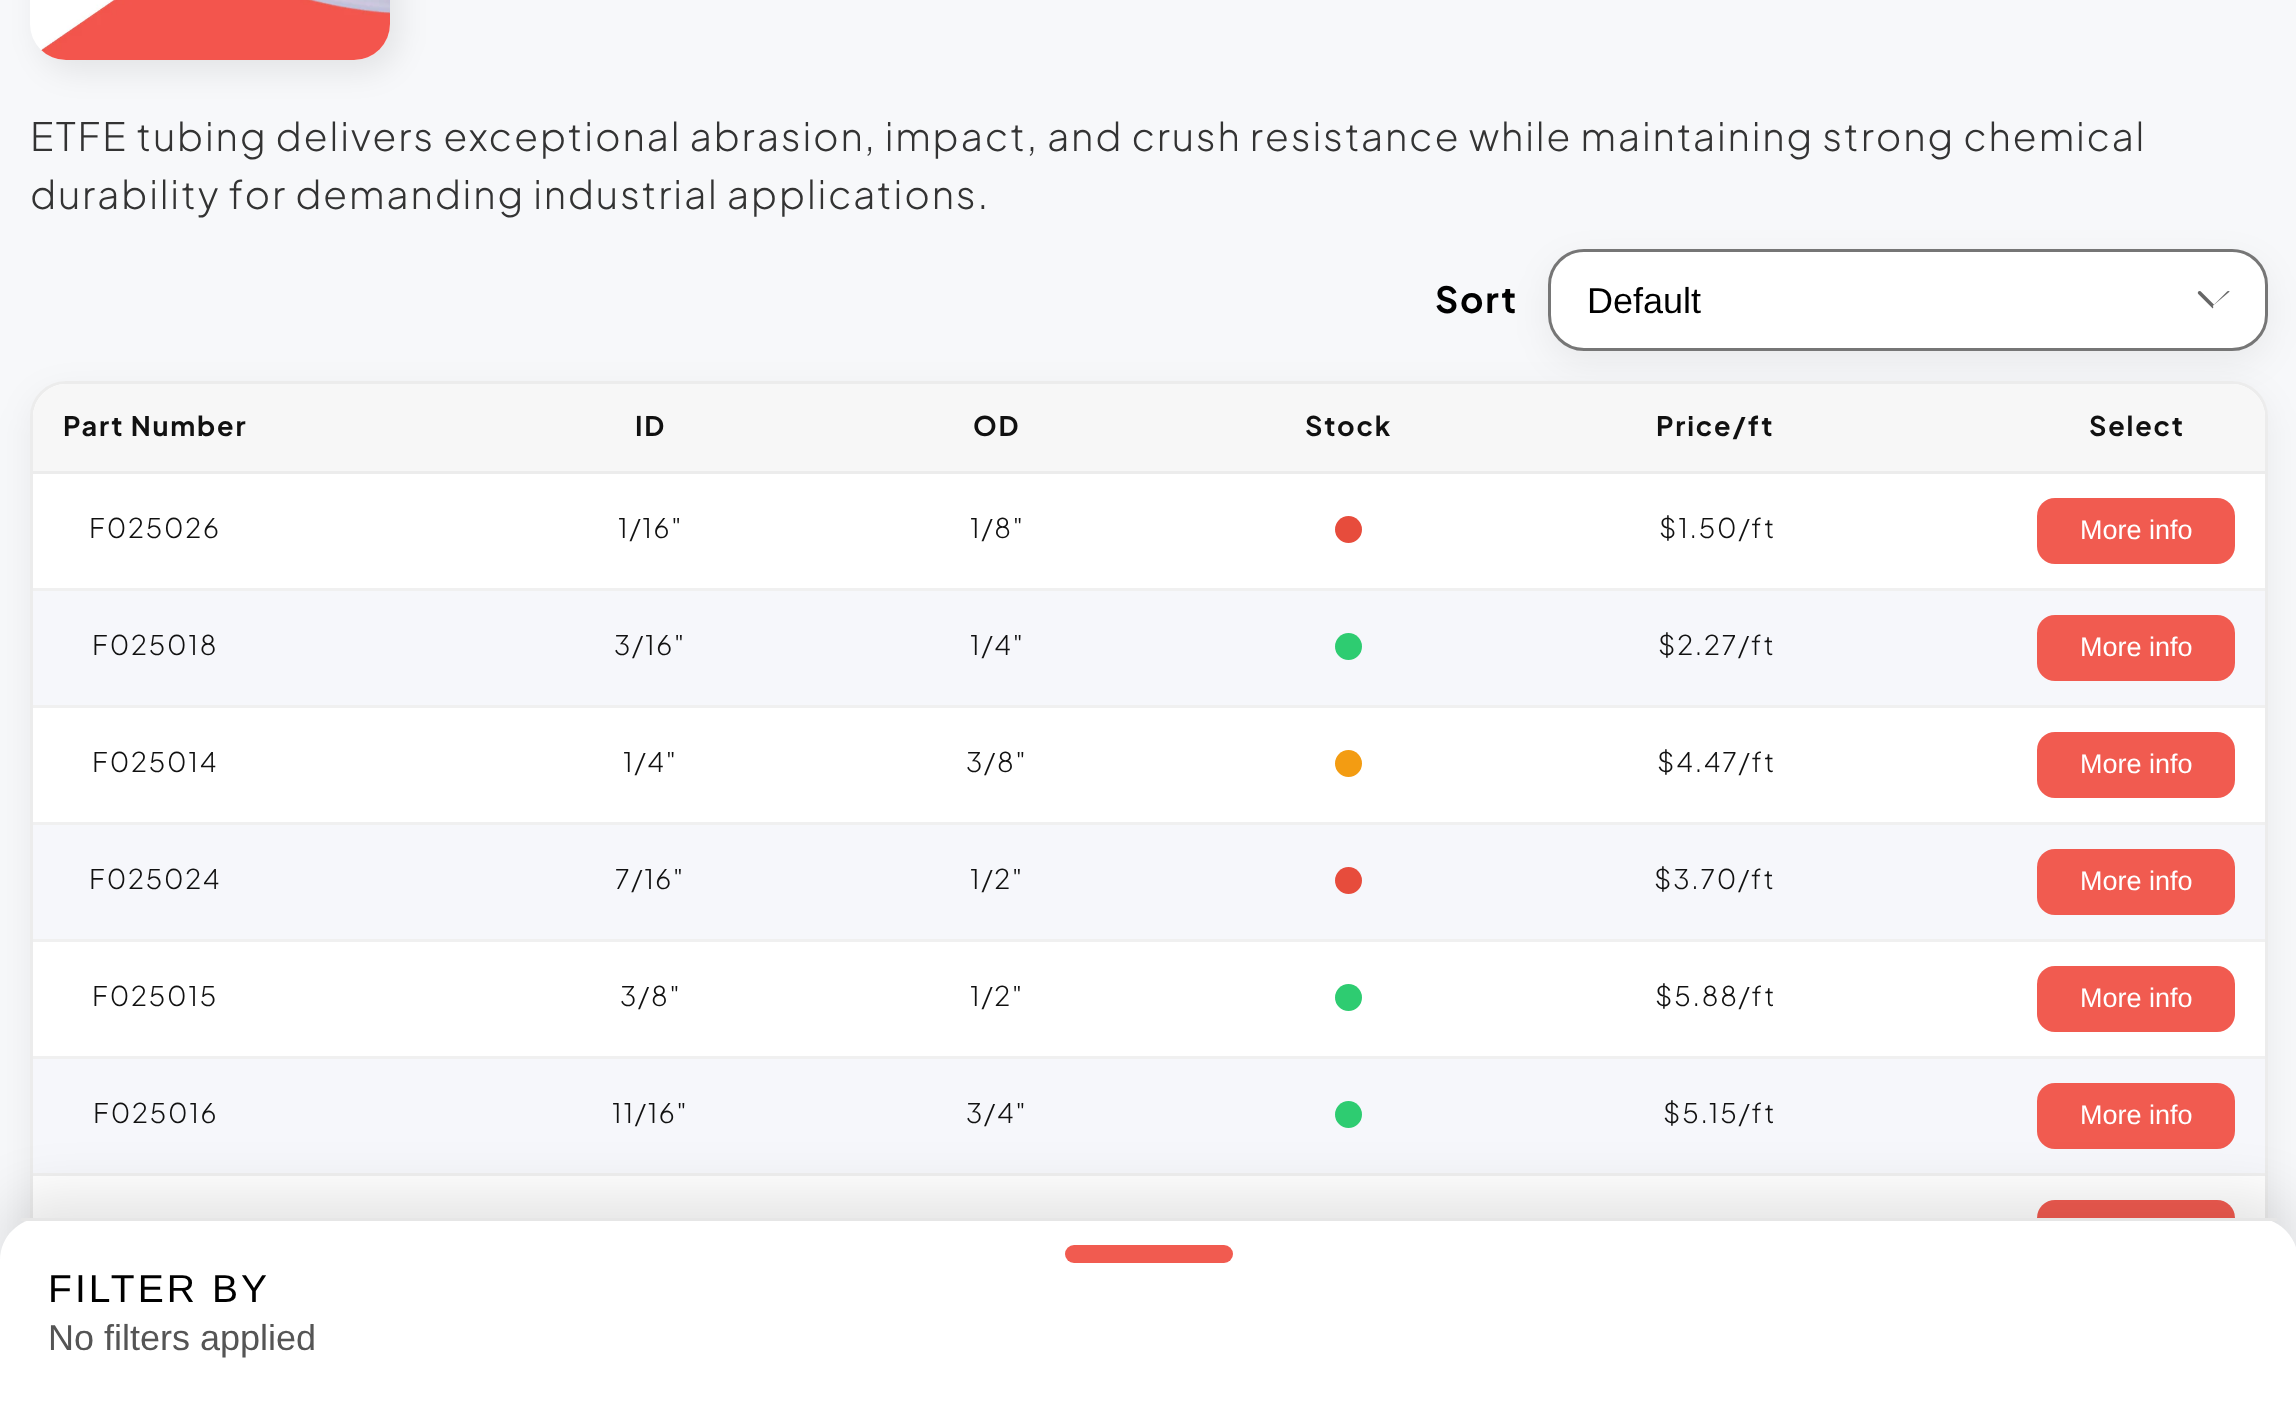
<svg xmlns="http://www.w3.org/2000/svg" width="2296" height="1402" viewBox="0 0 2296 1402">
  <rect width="100%" height="100%" fill="#f7f8fa"/>
  <rect x="39" y="-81" width="360" height="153" rx="36" fill="#00000014" filter="blur(15px)"/>
  <rect x="30" y="-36" width="360" height="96" rx="36" fill="#fff"/>
  <image x="41" y="0" width="349" height="60" href="img/1.png"/>
  <rect x="1548" y="261" width="720" height="102" rx="36" fill="#0000000f" filter="blur(18px)"/>
  <rect x="1549.5" y="250.5" width="717" height="99" rx="34.5" fill="#fff" stroke="#767676" stroke-width="3"/>
  <image x="2197" y="291" width="33" height="18" href="img/2.png"/>
  <rect x="30" y="393" width="2238" height="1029" rx="36" fill="#0000000f" filter="blur(18px)"/>
  <rect x="31.5" y="382.5" width="2235" height="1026" rx="34.5" fill="#fff" stroke="#ececec" stroke-width="3"/>
  <path d="M66 384H2232C2250 384 2265 399 2265 417V474H33V417C33 399 48 384 66 384Z" fill="#f7f7f7"/>
  <path d="M33 471h2232v3H33z" fill="#ececec"/>
  <path d="M33 588h2232v3H33z" fill="#f0f0f0"/>
  <circle cx="1348.5" cy="529.5" r="13.5" fill="#e74c3c"/>
  <rect x="2037" y="498" width="198" height="66" rx="18" fill="#f15b50"/>
  <path d="M33 591h2232v114H33z" fill="#f6f7fb"/>
  <path d="M33 705h2232v3H33z" fill="#f0f0f0"/>
  <circle cx="1348.5" cy="646.5" r="13.5" fill="#2ecc71"/>
  <rect x="2037" y="615" width="198" height="66" rx="18" fill="#f15b50"/>
  <path d="M33 822h2232v3H33z" fill="#f0f0f0"/>
  <circle cx="1348.5" cy="763.5" r="13.5" fill="#f39c12"/>
  <rect x="2037" y="732" width="198" height="66" rx="18" fill="#f15b50"/>
  <path d="M33 825h2232v114H33z" fill="#f6f7fb"/>
  <path d="M33 939h2232v3H33z" fill="#f0f0f0"/>
  <circle cx="1348.5" cy="880.5" r="13.5" fill="#e74c3c"/>
  <rect x="2037" y="849" width="198" height="66" rx="18" fill="#f15b50"/>
  <path d="M33 1056h2232v3H33z" fill="#f0f0f0"/>
  <circle cx="1348.5" cy="997.5" r="13.5" fill="#2ecc71"/>
  <rect x="2037" y="966" width="198" height="66" rx="18" fill="#f15b50"/>
  <path d="M33 1059h2232v114H33z" fill="#f6f7fb"/>
  <path d="M33 1173h2232v3H33z" fill="#f0f0f0"/>
  <circle cx="1348.5" cy="1114.5" r="13.5" fill="#2ecc71"/>
  <rect x="2037" y="1083" width="198" height="66" rx="18" fill="#f15b50"/>
  <rect x="2037" y="1200" width="198" height="66" rx="18" fill="#f15b50"/>
  <rect y="1194" width="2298" height="186" rx="42" fill="#0000001a" filter="blur(27px)"/>
  <path d="M42 1218H2256C2279 1218 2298 1237 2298 1260V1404H0V1260C0 1237 19 1218 42 1218Z" fill="#fff"/>
  <path d="M21 1218h2256v3H21z" fill="#e6e6e6"/>
  <rect x="1065" y="1245" width="168" height="18" rx="9" fill="#f15b50"/>
  <g font-family="Plus Jakarta Sans" font-size="39" font-weight="300" letter-spacing="1.8" fill="#333">
    <text x="30" y="151">ETFE tubing delivers exceptional abrasion, impact, and crush resistance while maintaining strong chemical</text>
    <text x="30" y="209">durability for demanding industrial applications.</text>
  </g>
  <text x="1435" y="313" font-family="Plus Jakarta Sans" font-size="36" font-weight="bold" letter-spacing="1.8" fill="#000">Sort</text>
  <text x="1587" y="313" font-family="Liberation Sans" font-size="36" fill="#000">Default</text>
  <g font-family="Plus Jakarta Sans" font-size="27" font-weight="bold" letter-spacing="1.8" fill="#111">
    <text x="63" y="436">Part Number</text>
    <text x="635" y="436">ID</text>
    <text x="973" y="436">OD</text>
    <text x="1305" y="436">Stock</text>
    <text x="1656" y="436">Price/ft</text>
    <text x="2089" y="436">Select</text>
  </g>
  <g font-family="Plus Jakarta Sans" font-size="27" font-weight="300" letter-spacing="1.8" fill="#111">
    <text x="89" y="538">F025026</text>
    <text x="618" y="538">1/16"</text>
    <text x="970" y="538">1/8"</text>
    <text x="1659" y="538">$1.50/ft</text>
  </g>
  <text x="2080" y="539" font-family="Liberation Sans" font-size="27" fill="#fff">More info</text>
  <g font-family="Plus Jakarta Sans" font-size="27" font-weight="300" letter-spacing="1.8" fill="#111">
    <text x="92" y="655">F025018</text>
    <text x="614" y="655">3/16"</text>
    <text x="970" y="655">1/4"</text>
    <text x="1658" y="655">$2.27/ft</text>
  </g>
  <text x="2080" y="656" font-family="Liberation Sans" font-size="27" fill="#fff">More info</text>
  <g font-family="Plus Jakarta Sans" font-size="27" font-weight="300" letter-spacing="1.8" fill="#111">
    <text x="92" y="772">F025014</text>
    <text x="623" y="772">1/4"</text>
    <text x="966" y="772">3/8"</text>
    <text x="1657" y="772">$4.47/ft</text>
  </g>
  <text x="2080" y="773" font-family="Liberation Sans" font-size="27" fill="#fff">More info</text>
  <g font-family="Plus Jakarta Sans" font-size="27" font-weight="300" letter-spacing="1.8" fill="#111">
    <text x="89" y="889">F025024</text>
    <text x="615" y="889">7/16"</text>
    <text x="970" y="889">1/2"</text>
    <text x="1654" y="889">$3.70/ft</text>
  </g>
  <text x="2080" y="890" font-family="Liberation Sans" font-size="27" fill="#fff">More info</text>
  <g font-family="Plus Jakarta Sans" font-size="27" font-weight="300" letter-spacing="1.8" fill="#111">
    <text x="92" y="1006">F025015</text>
    <text x="620" y="1006">3/8"</text>
    <text x="970" y="1006">1/2"</text>
    <text x="1655" y="1006">$5.88/ft</text>
  </g>
  <text x="2080" y="1007" font-family="Liberation Sans" font-size="27" fill="#fff">More info</text>
  <g font-family="Plus Jakarta Sans" font-size="27" font-weight="300" letter-spacing="1.8" fill="#111">
    <text x="93" y="1123">F025016</text>
    <text x="612" y="1123">11/16"</text>
    <text x="966" y="1123">3/4"</text>
    <text x="1663" y="1123">$5.15/ft</text>
  </g>
  <text x="2080" y="1124" font-family="Liberation Sans" font-size="27" fill="#fff">More info</text>
  <text x="48" y="1302" font-family="Liberation Sans" font-size="39" letter-spacing="3.1" fill="#000">FILTER BY</text>
  <text x="48" y="1350" font-family="Liberation Sans" font-size="36" fill="#555">No filters applied</text>
</svg>
